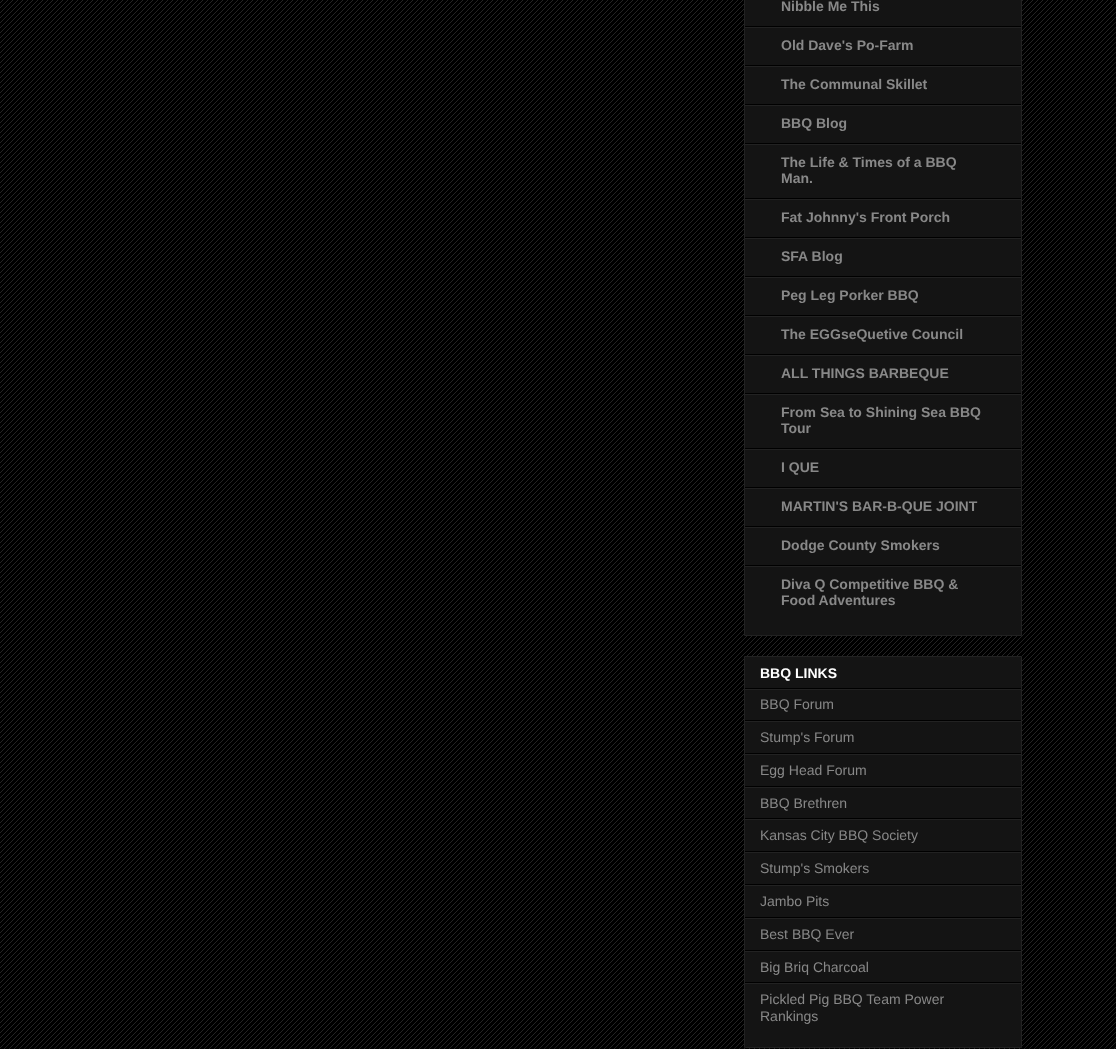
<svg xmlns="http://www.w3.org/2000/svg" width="1116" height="1049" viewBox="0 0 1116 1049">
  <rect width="100%" height="100%" fill="#000"/>
  <image x="0" y="0" width="1116" height="1049" href="img/1.png"/>
  <path d="M744.5 -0.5h277v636H744.5z" fill="#141414" stroke="#222"/>
  <path d="M745 26h276v1H745z" fill="#000"/>
  <path d="M745 27h276v1H745z" fill="#222"/>
  <path d="M745 65h276v1H745z" fill="#000"/>
  <path d="M745 66h276v1H745z" fill="#222"/>
  <path d="M745 104h276v1H745z" fill="#000"/>
  <path d="M745 105h276v1H745z" fill="#222"/>
  <path d="M745 143h276v1H745z" fill="#000"/>
  <path d="M745 144h276v1H745z" fill="#222"/>
  <path d="M745 198h276v1H745z" fill="#000"/>
  <path d="M745 199h276v1H745z" fill="#222"/>
  <path d="M745 237h276v1H745z" fill="#000"/>
  <path d="M745 238h276v1H745z" fill="#222"/>
  <path d="M745 276h276v1H745z" fill="#000"/>
  <path d="M745 277h276v1H745z" fill="#222"/>
  <path d="M745 315h276v1H745z" fill="#000"/>
  <path d="M745 316h276v1H745z" fill="#222"/>
  <path d="M745 354h276v1H745z" fill="#000"/>
  <path d="M745 355h276v1H745z" fill="#222"/>
  <path d="M745 393h276v1H745z" fill="#000"/>
  <path d="M745 394h276v1H745z" fill="#222"/>
  <path d="M745 448h276v1H745z" fill="#000"/>
  <path d="M745 449h276v1H745z" fill="#222"/>
  <path d="M745 487h276v1H745z" fill="#000"/>
  <path d="M745 488h276v1H745z" fill="#222"/>
  <path d="M745 526h276v1H745z" fill="#000"/>
  <path d="M745 527h276v1H745z" fill="#222"/>
  <path d="M745 565h276v1H745z" fill="#000"/>
  <path d="M745 566h276v1H745z" fill="#222"/>
  <path d="M744.5 656.5h277v391H744.5z" fill="#141414" stroke="#222"/>
  <path d="M745 688h276v1H745z" fill="#000"/>
  <path d="M745 689h276v1H745z" fill="#222"/>
  <path d="M745 720h276v1H745z" fill="#000"/>
  <path d="M745 721h276v1H745z" fill="#222"/>
  <path d="M745 753h276v1H745z" fill="#000"/>
  <path d="M745 754h276v1H745z" fill="#222"/>
  <path d="M745 786h276v1H745z" fill="#000"/>
  <path d="M745 787h276v1H745z" fill="#222"/>
  <path d="M745 818h276v1H745z" fill="#000"/>
  <path d="M745 819h276v1H745z" fill="#222"/>
  <path d="M745 851h276v1H745z" fill="#000"/>
  <path d="M745 852h276v1H745z" fill="#222"/>
  <path d="M745 884h276v1H745z" fill="#000"/>
  <path d="M745 885h276v1H745z" fill="#222"/>
  <path d="M745 917h276v1H745z" fill="#000"/>
  <path d="M745 918h276v1H745z" fill="#222"/>
  <path d="M745 950h276v1H745z" fill="#000"/>
  <path d="M745 951h276v1H745z" fill="#222"/>
  <path d="M745 982h276v1H745z" fill="#000"/>
  <path d="M745 983h276v1H745z" fill="#222"/>
  <g font-family="Liberation Sans" font-size="14" font-weight="bold" fill="#888">
    <text x="781" y="11">Nibble Me This</text>
    <text x="781" y="50">Old Dave's Po-Farm</text>
    <text x="781" y="89">The Communal Skillet</text>
    <text x="781" y="128">BBQ Blog</text>
    <text x="781" y="167">The Life &amp; Times of a BBQ</text>
    <text x="781" y="183">Man.</text>
    <text x="781" y="222">Fat Johnny's Front Porch</text>
    <text x="781" y="261">SFA Blog</text>
    <text x="781" y="300">Peg Leg Porker BBQ</text>
    <text x="781" y="339">The EGGseQuetive Council</text>
    <text x="781" y="378">ALL THINGS BARBEQUE</text>
    <text x="781" y="417">From Sea to Shining Sea BBQ</text>
    <text x="781" y="433">Tour</text>
    <text x="781" y="472">I QUE</text>
    <text x="781" y="511">MARTIN'S BAR-B-QUE JOINT</text>
    <text x="781" y="550">Dodge County Smokers</text>
    <text x="781" y="589">Diva Q Competitive BBQ &amp;</text>
    <text x="781" y="605">Food Adventures</text>
  </g>
  <text x="760" y="678" font-family="Liberation Sans" font-size="14" font-weight="bold" fill="#fff">BBQ LINKS</text>
  <g font-family="Liberation Sans" font-size="14" fill="#888">
    <text x="760" y="709">BBQ Forum</text>
    <text x="760" y="742">Stump's Forum</text>
    <text x="760" y="775">Egg Head Forum</text>
    <text x="760" y="808">BBQ Brethren</text>
    <text x="760" y="840">Kansas City BBQ Society</text>
    <text x="760" y="873">Stump's Smokers</text>
    <text x="760" y="906">Jambo Pits</text>
    <text x="760" y="939">Best BBQ Ever</text>
    <text x="760" y="972">Big Briq Charcoal</text>
    <text x="760" y="1004">Pickled Pig BBQ Team Power</text>
    <text x="760" y="1021">Rankings</text>
  </g>
</svg>
